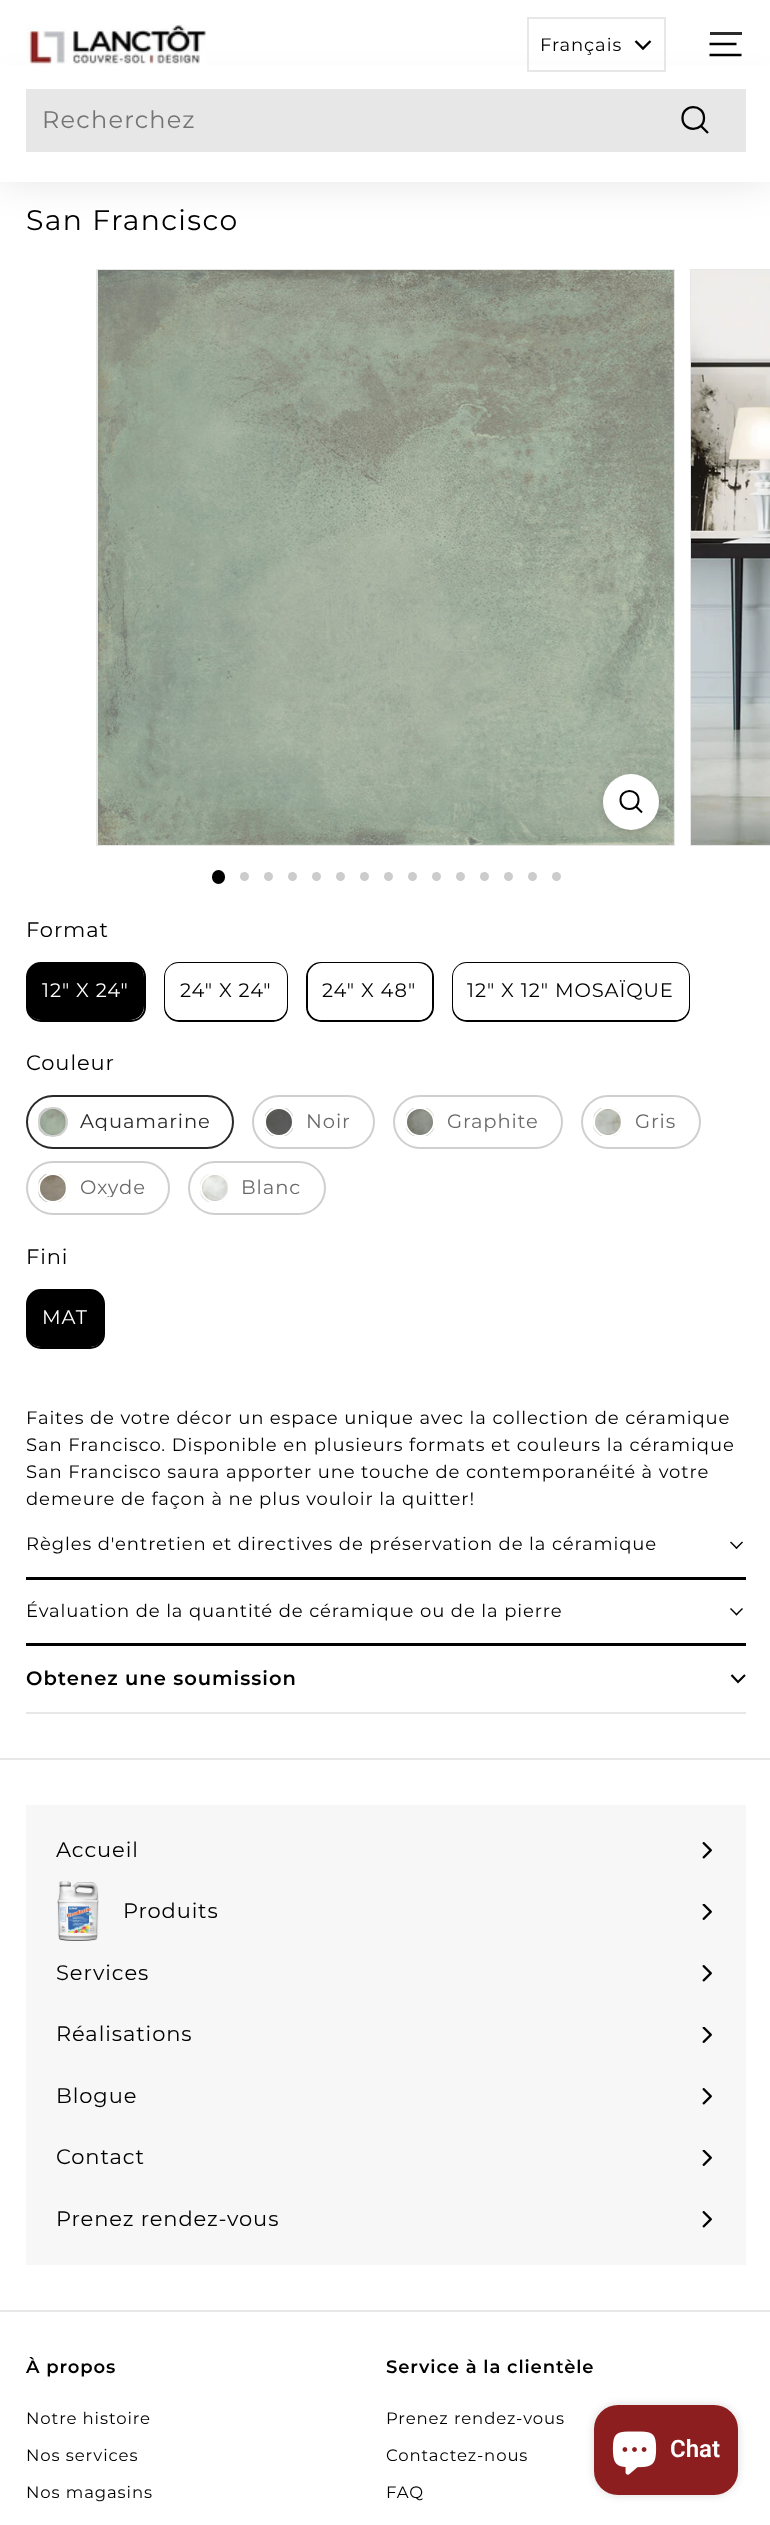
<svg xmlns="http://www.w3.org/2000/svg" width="770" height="2525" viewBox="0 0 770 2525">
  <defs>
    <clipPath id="clip1"><path d="M80 1112h130v19H80z"/></clipPath>
    <clipPath id="clip2"><path d="M80 1178h66v19H80z"/></clipPath>
  </defs>
  <rect width="100%" height="100%" fill="#fff"/>
  <path d="M26 1805h720v460H26z" fill="#f7f7f7"/>
  <path d="M0 89h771v93H0z" fill="#0000001a" filter="blur(19px)"/>
  <path d="M0 65h770v117H0z" fill="#fff"/>
  <image x="25" y="24" width="181" height="42" href="img/1.png"/>
  <path d="M528 18h137v53H528z" fill="none" stroke="#e7e7e7" stroke-width="2"/>
  <path d="M635.5 41L643 48.5L650.5 41" fill="none" stroke="#000" stroke-width="2.4"/>
  <path d="M710 32h32v3H710z" fill="#2b2b2b"/>
  <path d="M709.5 44H736.5M709.5 55H741.5" fill="none" stroke="#000" stroke-width="2.5"/>
  <path d="M26 89h720v63H26z" fill="#e7e7e7"/>
  <path d="M704 118C704 132.5 682.5 132.5 682.5 118C682.5 103.5 704 103.5 704 118ZM708 133L701 126" fill="none" stroke="#000" stroke-width="2.3"/>
  <path d="M97 270h577v575H97z" fill="none" stroke="#e7e7e7" stroke-width="2"/>
  <image x="98" y="270" width="576" height="575" href="img/2.png"/>
  <rect x="603" y="779" width="56" height="55" rx="27.5" fill="#00000026" filter="blur(4.5px)"/>
  <circle cx="631" cy="802" r="28" fill="#fff"/>
  <path d="M638.5 800C638.5 812 620.5 812 620.5 800C620.5 788 638.5 788 638.5 800ZM642 812.5L636 806.5" fill="none" stroke="#000" stroke-width="2"/>
  <path d="M691 270h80v575H691z" fill="none" stroke="#e7e7e7" stroke-width="2"/>
  <image x="691" y="270" width="79" height="575" href="img/3.png"/>
  <rect x="212" y="870" width="13" height="14" rx="6.5" fill="#000"/>
  <circle cx="244.5" cy="876.5" r="4.5" fill="#ccc"/>
  <circle cx="268.5" cy="876.5" r="4.5" fill="#ccc"/>
  <circle cx="292.5" cy="876.5" r="4.5" fill="#ccc"/>
  <circle cx="316.5" cy="876.5" r="4.5" fill="#ccc"/>
  <circle cx="340.5" cy="876.5" r="4.5" fill="#ccc"/>
  <circle cx="364.5" cy="876.5" r="4.5" fill="#ccc"/>
  <circle cx="388.5" cy="876.5" r="4.5" fill="#ccc"/>
  <circle cx="412.5" cy="876.5" r="4.5" fill="#ccc"/>
  <circle cx="436.5" cy="876.5" r="4.5" fill="#ccc"/>
  <circle cx="460.5" cy="876.5" r="4.5" fill="#ccc"/>
  <circle cx="484.5" cy="876.5" r="4.5" fill="#ccc"/>
  <circle cx="508.5" cy="876.5" r="4.5" fill="#ccc"/>
  <circle cx="532.5" cy="876.5" r="4.5" fill="#ccc"/>
  <circle cx="556.5" cy="876.5" r="4.5" fill="#ccc"/>
  <rect x="27" y="963" width="118" height="58" rx="14" fill="none" stroke="#000" stroke-width="2"/>
  <rect x="27" y="963" width="117" height="57" rx="14" fill="#000"/>
  <rect x="165" y="963" width="122" height="58" rx="14" fill="none" stroke="#000" stroke-width="2"/>
  <rect x="165" y="963" width="122" height="57" rx="14" fill="#fff"/>
  <rect x="307" y="963" width="126" height="58" rx="14" fill="none" stroke="#000" stroke-width="2"/>
  <rect x="308" y="963" width="124" height="57" rx="14" fill="#fff"/>
  <rect x="453" y="963" width="236" height="58" rx="14" fill="none" stroke="#000" stroke-width="2"/>
  <rect x="453" y="963" width="236" height="57" rx="14" fill="#fff"/>
  <rect x="27" y="1096" width="206" height="52" rx="26" fill="none" stroke="#292929" stroke-width="2"/>
  <image x="38" y="1108" width="29" height="28" href="img/4.png"/>
  <circle cx="53" cy="1122" r="14" fill="none" stroke="#cfcfcf" stroke-width="2"/>
  <rect x="253" y="1096" width="121" height="52" rx="26" fill="none" stroke="#cfcfcf" stroke-width="2"/>
  <image x="265" y="1108" width="28" height="28" href="img/5.png"/>
  <circle cx="279" cy="1122" r="14" fill="none" stroke="#fff" stroke-width="2"/>
  <rect x="394" y="1096" width="168" height="52" rx="26" fill="none" stroke="#cfcfcf" stroke-width="2"/>
  <image x="406" y="1108" width="28" height="28" href="img/6.png"/>
  <circle cx="420" cy="1122" r="14" fill="none" stroke="#fff" stroke-width="2"/>
  <rect x="582" y="1096" width="118" height="52" rx="26" fill="none" stroke="#cfcfcf" stroke-width="2"/>
  <image x="593" y="1108" width="29" height="28" href="img/7.png"/>
  <circle cx="608" cy="1122" r="14" fill="none" stroke="#fff" stroke-width="2"/>
  <rect x="27" y="1162" width="142" height="52" rx="26" fill="none" stroke="#cfcfcf" stroke-width="2"/>
  <image x="38" y="1174" width="29" height="28" href="img/8.png"/>
  <circle cx="53" cy="1188" r="14" fill="none" stroke="#fff" stroke-width="2"/>
  <rect x="189" y="1162" width="136" height="52" rx="26" fill="none" stroke="#cfcfcf" stroke-width="2"/>
  <image x="200" y="1174" width="29" height="28" href="img/9.png"/>
  <circle cx="215" cy="1188" r="14" fill="none" stroke="#fff" stroke-width="2"/>
  <rect x="27" y="1290" width="77" height="58" rx="14" fill="none" stroke="#000" stroke-width="2"/>
  <rect x="27" y="1290" width="77" height="57" rx="14" fill="#000"/>
  <path d="M26 1577h720v3H26z" fill="#000"/>
  <path d="M742 1541.5L743 1542.5L736.5 1549L735.5 1548Z" fill="#000"/>
  <path d="M731 1541.5L737.5 1548L736.5 1549L730 1542.5Z" fill="#000"/>
  <path d="M26 1643h720v3H26z" fill="#000"/>
  <path d="M742 1608L743 1609L736.5 1615.5L735.5 1614.5Z" fill="#000"/>
  <path d="M731 1608L737.5 1614.5L736.5 1615.5L730 1609Z" fill="#000"/>
  <path d="M26 1712h720v2H26z" fill="#e7e7e7"/>
  <path d="M731.5 1675L738 1682L745 1675" fill="none" stroke="#000" stroke-width="2.1"/>
  <path d="M0 1758h770v2H0z" fill="#e7e7e7"/>
  <image x="702" y="1842" width="10" height="17" href="img/10.png"/>
  <image x="57" y="1881" width="42" height="60" href="img/11.png"/>
  <image x="702" y="1904" width="10" height="16" href="img/12.png"/>
  <image x="702" y="1965" width="10" height="17" href="img/10.png"/>
  <image x="702" y="2027" width="10" height="16" href="img/12.png"/>
  <image x="702" y="2088" width="10" height="17" href="img/10.png"/>
  <image x="702" y="2150" width="10" height="16" href="img/12.png"/>
  <image x="702" y="2211" width="10" height="17" href="img/10.png"/>
  <path d="M0 2310h770v2H0z" fill="#e7e7e7"/>
  <rect x="594" y="2405" width="144" height="90" rx="24" fill="#00000026" filter="blur(4px)"/>
  <rect x="594" y="2405" width="144" height="90" rx="24" fill="#8c1e1f"/>
  <image x="612" y="2431" width="45" height="44" href="img/13.png"/>
  <text x="540" y="51" font-family="Montserrat" font-size="18" letter-spacing="0.9" fill="#000">Français</text>
  <text x="42" y="128" font-family="Montserrat" font-size="24" letter-spacing="1.25" fill="#747474">Recherchez</text>
  <text x="26" y="230" font-family="Montserrat" font-size="28.25" letter-spacing="1.4" fill="#000">San Francisco</text>
  <text x="26" y="937" font-family="Montserrat" font-size="21" letter-spacing="0.9" fill="#000">Format</text>
  <text x="42" y="997" font-family="Montserrat" font-size="19.5" letter-spacing="0.9" fill="#fff">12" X 24"</text>
  <g font-family="Montserrat" font-size="19.5" letter-spacing="0.9" fill="#000">
    <text x="180" y="997">24" X 24"</text>
    <text x="322" y="997">24" X 48"</text>
    <text x="467" y="997">12" X 12" MOSAÏQUE</text>
  </g>
  <text x="26" y="1070" font-family="Montserrat" font-size="21" letter-spacing="0.9" fill="#000">Couleur</text>
  <g clip-path="url(#clip1)">
    <text x="80" y="1128" font-family="Montserrat" font-size="19.5" letter-spacing="0.9" fill="#292929">Aquamarine</text>
  </g>
  <g font-family="Montserrat" font-size="19.5" letter-spacing="0.9" fill="#6a6a6a">
    <text x="306" y="1128">Noir</text>
    <text x="447" y="1128">Graphite</text>
    <text x="635" y="1128">Gris</text>
  </g>
  <g clip-path="url(#clip2)">
    <text x="80" y="1194" font-family="Montserrat" font-size="19.5" letter-spacing="0.9" fill="#6a6a6a">Oxyde</text>
  </g>
  <text x="241" y="1194" font-family="Montserrat" font-size="19.5" letter-spacing="0.9" fill="#6a6a6a">Blanc</text>
  <text x="26" y="1264" font-family="Montserrat" font-size="21" letter-spacing="0.9" fill="#000">Fini</text>
  <text x="42" y="1324" font-family="Montserrat" font-size="19.5" letter-spacing="0.9" fill="#fff">MAT</text>
  <g font-family="Montserrat" font-size="18" letter-spacing="0.9" fill="#000">
    <text x="26" y="1424">Faites de votre décor un espace unique avec la collection de céramique</text>
    <text x="26" y="1451">San Francisco. Disponible en plusieurs formats et couleurs la céramique</text>
    <text x="26" y="1478">San Francisco saura apporter une touche de contemporanéité à votre</text>
    <text x="26" y="1505">demeure de façon à ne plus vouloir la quitter!</text>
    <text x="26" y="1550">Règles d'entretien et directives de préservation de la céramique</text>
    <text x="26" y="1617">Évaluation de la quantité de céramique ou de la pierre</text>
  </g>
  <text x="26" y="1685" font-family="Montserrat" font-size="19.5" font-weight="600" letter-spacing="1" fill="#000">Obtenez une soumission</text>
  <g font-family="Montserrat" font-size="21" letter-spacing="0.9" fill="#000">
    <text x="56" y="1857">Accueil</text>
    <text x="123" y="1918">Produits</text>
    <text x="56" y="1980">Services</text>
    <text x="56" y="2041">Réalisations</text>
    <text x="56" y="2103">Blogue</text>
    <text x="56" y="2164">Contact</text>
    <text x="56" y="2226">Prenez rendez-vous</text>
  </g>
  <text x="26" y="2373" font-family="Montserrat" font-size="18" font-weight="600" letter-spacing="0.9" fill="#000">À propos</text>
  <g font-family="Montserrat" font-size="16.5" letter-spacing="0.9" fill="#000">
    <text x="26" y="2424">Notre histoire</text>
    <text x="26" y="2461">Nos services</text>
    <text x="26" y="2498">Nos magasins</text>
  </g>
  <text x="386" y="2373" font-family="Montserrat" font-size="18" font-weight="600" letter-spacing="0.9" fill="#000">Service à la clientèle</text>
  <g font-family="Montserrat" font-size="16.5" letter-spacing="0.9" fill="#000">
    <text x="386" y="2424">Prenez rendez-vous</text>
    <text x="386" y="2461">Contactez-nous</text>
    <text x="386" y="2498">FAQ</text>
  </g>
  <text x="670" y="2457" font-family="Roboto" font-size="24" font-weight="600" fill="#fff">Chat</text>
</svg>
